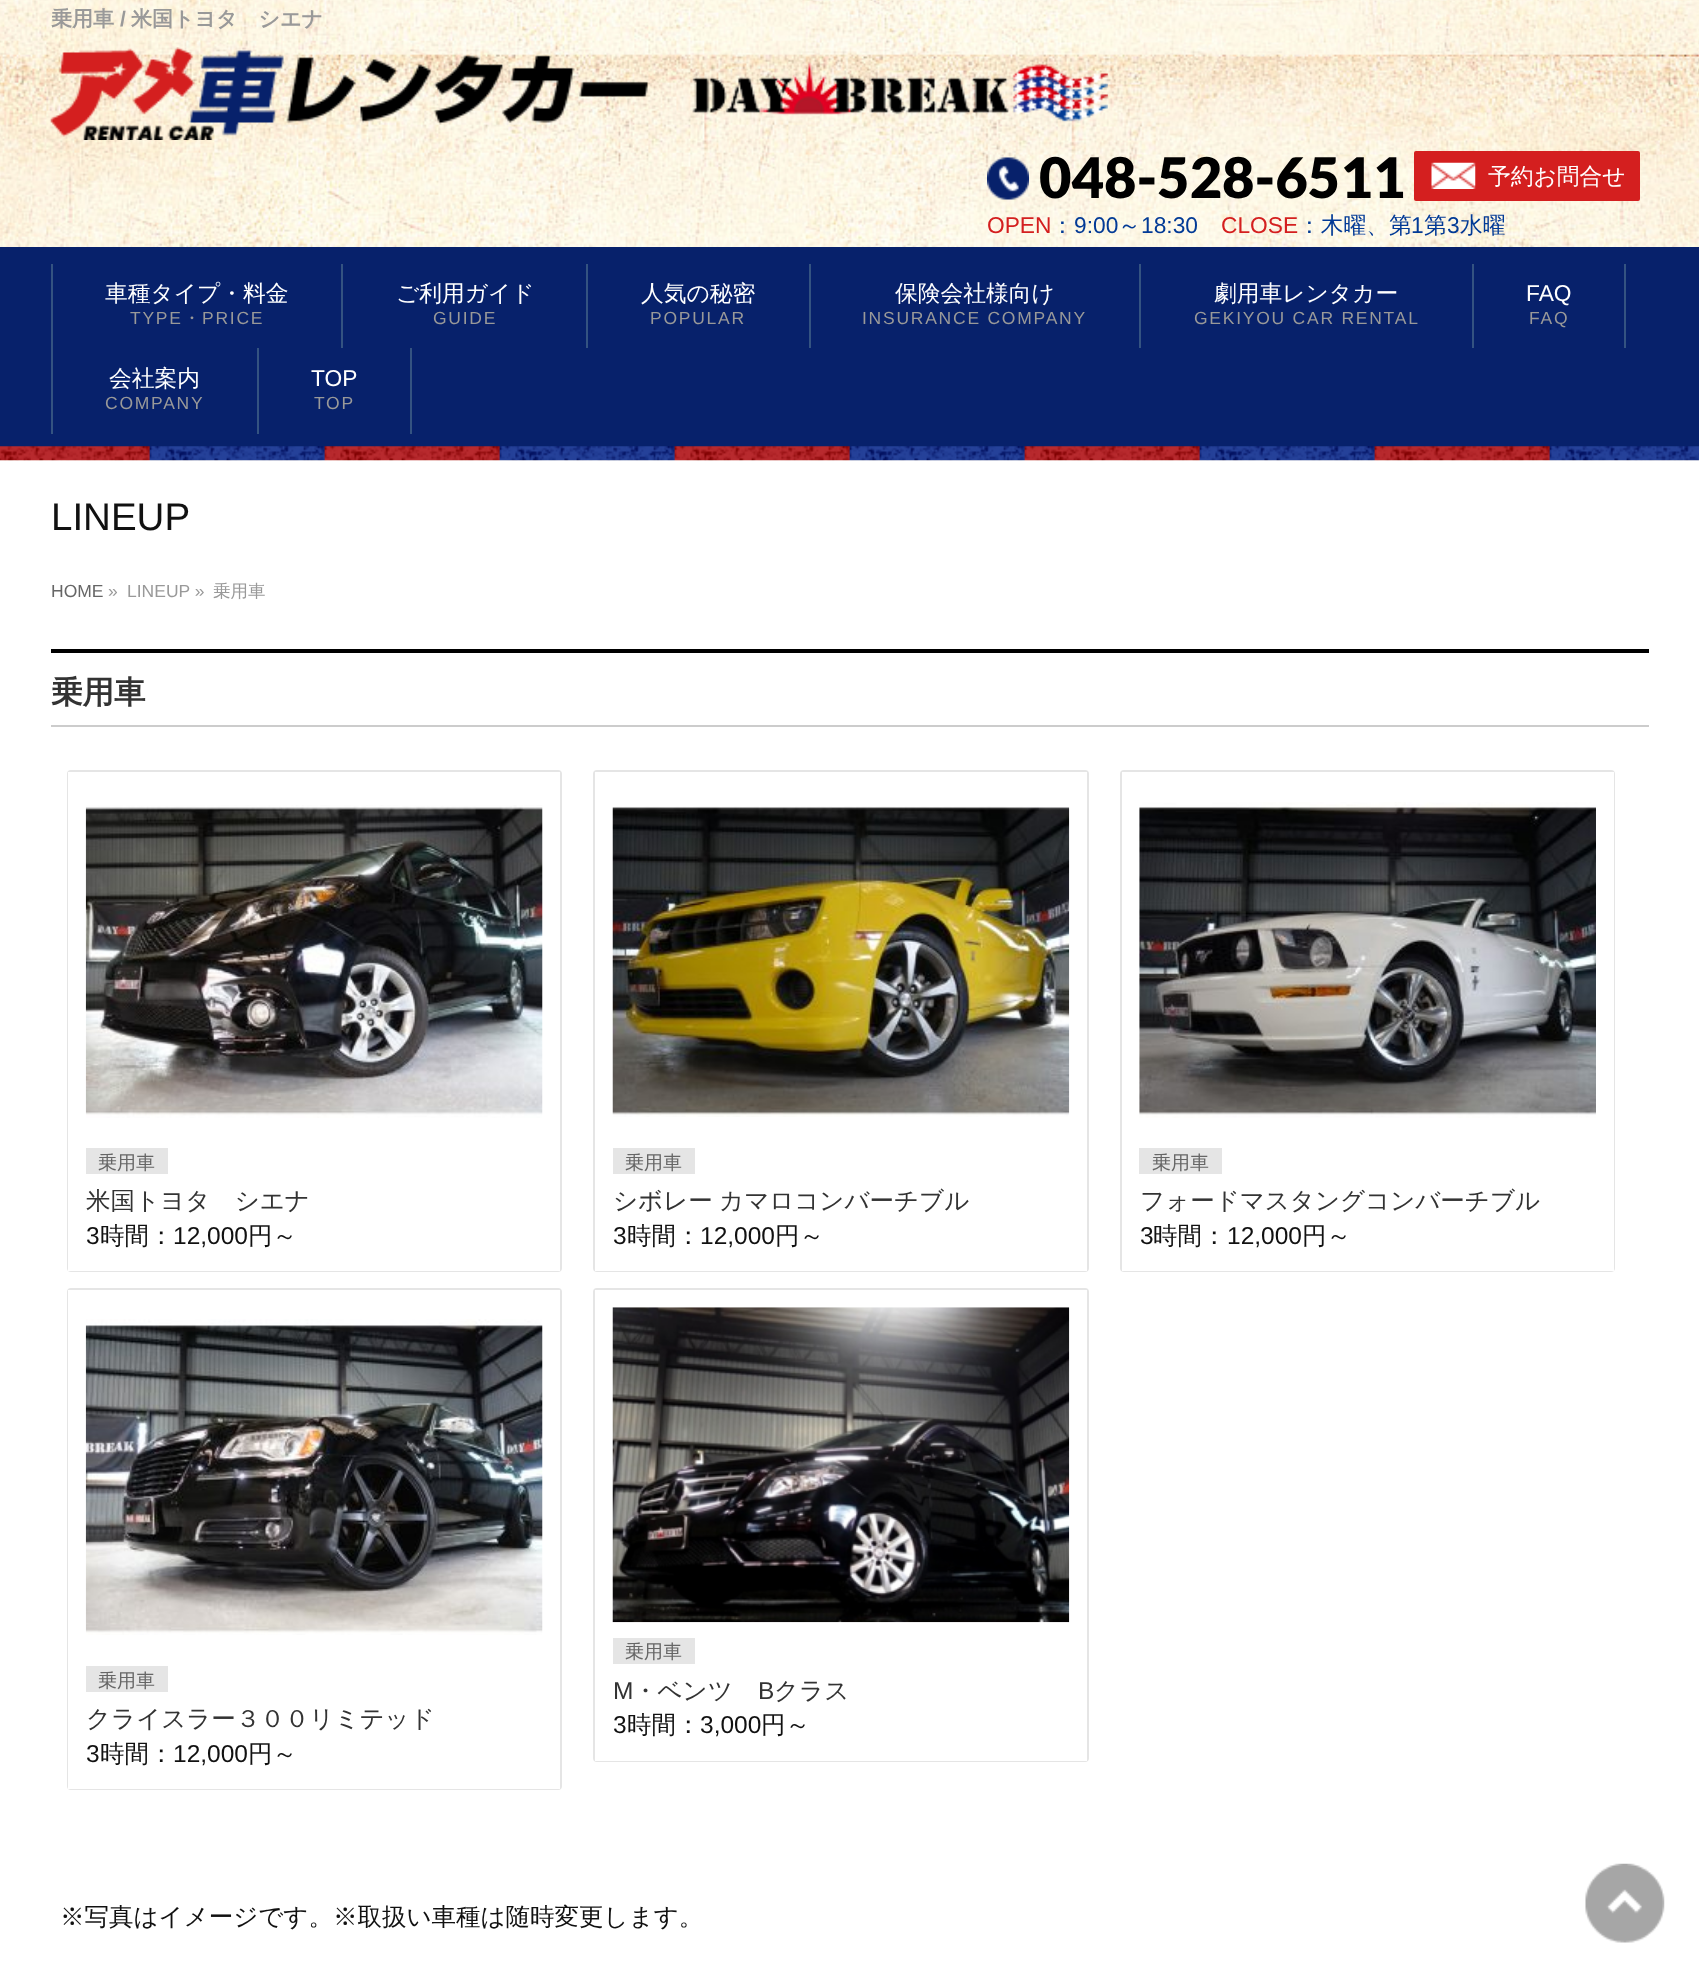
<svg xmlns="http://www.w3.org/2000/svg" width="1699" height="1976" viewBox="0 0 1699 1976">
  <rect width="100%" height="100%" fill="#fff"/>
  <image x="0" y="0" width="1699" height="461" href="img/1.png"/>
  <image x="50" y="47" width="1058" height="93" href="img/2.png"/>
  <image x="987" y="157" width="42" height="43" href="img/3.png"/>
  <rect x="1414" y="151" width="226" height="50" rx="2" fill="#d41f1f"/>
  <image x="1431" y="162" width="45" height="27" href="img/4.png"/>
  <path d="M0 247h1699v200H0z" fill="#07216b"/>
  <image x="0" y="446" width="1699" height="15" href="img/5.png"/>
  <path d="M51 264h2v170H51z" fill="#345381"/>
  <path d="M341 264h2v84H341z" fill="#345381"/>
  <path d="M586 264h2v84H586z" fill="#345381"/>
  <path d="M809 264h2v84H809z" fill="#345381"/>
  <path d="M1139 264h2v84H1139z" fill="#345381"/>
  <path d="M1472 264h2v84H1472z" fill="#345381"/>
  <path d="M1624 264h2v84H1624z" fill="#345381"/>
  <path d="M257 348h2v86H257z" fill="#345381"/>
  <path d="M410 348h2v86H410z" fill="#345381"/>
  <path d="M51 649h1598v4H51z" fill="#000"/>
  <path d="M51 725h1598v2H51z" fill="#ccc"/>
  <rect x="68" y="771" width="493" height="500" rx="3" fill="none" stroke="#e5e5e5" stroke-width="2"/>
  <path d="M68 772h492v499H68z" fill="#fff"/>
  <image x="85" y="805" width="458" height="313" href="img/6.png"/>
  <path d="M86 1148h82v26H86z" fill="#e5e5e5"/>
  <rect x="594" y="771" width="494" height="500" rx="3" fill="none" stroke="#e5e5e5" stroke-width="2"/>
  <path d="M595 772h492v499H595z" fill="#fff"/>
  <image x="612" y="806" width="458" height="311" href="img/7.png"/>
  <path d="M613 1148h82v26H613z" fill="#e5e5e5"/>
  <rect x="1121" y="771" width="493" height="500" rx="3" fill="none" stroke="#e5e5e5" stroke-width="2"/>
  <path d="M1122 772h492v499H1122z" fill="#fff"/>
  <image x="1139" y="802" width="457" height="316" href="img/8.png"/>
  <path d="M1139 1148h83v26H1139z" fill="#e5e5e5"/>
  <rect x="68" y="1289" width="493" height="500" rx="3" fill="none" stroke="#e5e5e5" stroke-width="2"/>
  <path d="M68 1290h492v499H68z" fill="#fff"/>
  <image x="85" y="1319" width="458" height="316" href="img/9.png"/>
  <path d="M86 1666h82v26H86z" fill="#e5e5e5"/>
  <rect x="594" y="1289" width="494" height="472" rx="3" fill="none" stroke="#e5e5e5" stroke-width="2"/>
  <path d="M595 1290h492v471H595z" fill="#fff"/>
  <image x="612" y="1307" width="458" height="316" href="img/10.png"/>
  <path d="M613 1638h82v26H613z" fill="#e5e5e5"/>
  <image x="1585" y="1863" width="80" height="80" href="img/11.png"/>
  <text x="51" y="26" font-family="WenQuanYi Zen Hei" font-size="21" font-weight="bold" fill="#999">乗用車</text>
  <text x="120" y="26" font-family="Liberation Sans" font-size="21" font-weight="bold" fill="#999">/</text>
  <text x="131" y="26" font-family="WenQuanYi Zen Hei" font-size="21" font-weight="bold" fill="#999">米国トヨタ　シエナ</text>
  <text x="1039" y="198" font-family="Lato" font-size="56" font-weight="900" fill="#000">048-528-6511</text>
  <text x="1488" y="184" font-family="WenQuanYi Zen Hei" font-size="22.75" font-weight="500" fill="#fff">予約お問合せ</text>
  <text x="987" y="233" font-family="Liberation Sans" font-size="22.75" fill="#d41f1f">OPEN</text>
  <text x="1051" y="233" font-family="WenQuanYi Zen Hei" font-size="22.75" font-weight="500" fill="#023a96">：</text>
  <text x="1074" y="233" font-family="Liberation Sans" font-size="22.75" fill="#023a96">9:00</text>
  <text x="1118" y="233" font-family="WenQuanYi Zen Hei" font-size="22.75" font-weight="500" fill="#023a96">～</text>
  <text x="1141" y="233" font-family="Liberation Sans" font-size="22.75" fill="#023a96">18:30</text>
  <text x="1221" y="233" font-family="Liberation Sans" font-size="22.75" fill="#d41f1f">CLOSE</text>
  <text x="1298" y="233" font-family="WenQuanYi Zen Hei" font-size="22.75" font-weight="500" fill="#023a96">：木曜、第</text>
  <text x="1411" y="233" font-family="Liberation Sans" font-size="22.75" fill="#023a96">1</text>
  <text x="1424" y="233" font-family="WenQuanYi Zen Hei" font-size="22.75" font-weight="500" fill="#023a96">第</text>
  <text x="1447" y="233" font-family="Liberation Sans" font-size="22.75" fill="#023a96">3</text>
  <text x="1460" y="233" font-family="WenQuanYi Zen Hei" font-size="22.75" font-weight="500" fill="#023a96">水曜</text>
  <text x="105" y="301" font-family="WenQuanYi Zen Hei" font-size="22.75" font-weight="500" fill="#fff">車種タイプ・料金</text>
  <text x="130" y="324" font-family="Liberation Sans" font-size="17.5" letter-spacing="1.75" fill="#999">TYPE</text>
  <text x="183" y="324" font-family="WenQuanYi Zen Hei" font-size="17.5" font-weight="500" letter-spacing="1.75" fill="#999">・</text>
  <text x="202" y="324" font-family="Liberation Sans" font-size="17.5" letter-spacing="1.75" fill="#999">PRICE</text>
  <text x="396" y="301" font-family="WenQuanYi Zen Hei" font-size="22.75" font-weight="500" fill="#fff">ご利用ガイド</text>
  <text x="433" y="324" font-family="Liberation Sans" font-size="17.5" letter-spacing="1.75" fill="#999">GUIDE</text>
  <text x="641" y="301" font-family="WenQuanYi Zen Hei" font-size="22.75" font-weight="500" fill="#fff">人気の秘密</text>
  <text x="650" y="324" font-family="Liberation Sans" font-size="17.5" letter-spacing="1.75" fill="#999">POPULAR</text>
  <text x="895" y="301" font-family="WenQuanYi Zen Hei" font-size="22.75" font-weight="500" fill="#fff">保険会社様向け</text>
  <text x="862" y="324" font-family="Liberation Sans" font-size="17.5" letter-spacing="1.75" fill="#999">INSURANCE COMPANY</text>
  <text x="1214" y="301" font-family="WenQuanYi Zen Hei" font-size="22.75" font-weight="500" fill="#fff">劇用車レンタカー</text>
  <text x="1194" y="324" font-family="Liberation Sans" font-size="17.5" letter-spacing="1.75" fill="#999">GEKIYOU CAR RENTAL</text>
  <text x="1526" y="301" font-family="Liberation Sans" font-size="22.75" fill="#fff">FAQ</text>
  <text x="1529" y="324" font-family="Liberation Sans" font-size="17.5" letter-spacing="1.75" fill="#999">FAQ</text>
  <text x="109" y="386" font-family="WenQuanYi Zen Hei" font-size="22.75" font-weight="500" fill="#fff">会社案内</text>
  <text x="105" y="409" font-family="Liberation Sans" font-size="17.5" letter-spacing="1.75" fill="#999">COMPANY</text>
  <text x="311" y="386" font-family="Liberation Sans" font-size="22.75" fill="#fff">TOP</text>
  <text x="314" y="409" font-family="Liberation Sans" font-size="17.5" letter-spacing="1.75" fill="#999">TOP</text>
  <text x="51" y="530" font-family="Liberation Sans" font-size="38.5" fill="#111">LINEUP</text>
  <text x="51" y="597" font-family="Liberation Sans" font-size="17.5" fill="#666">HOME</text>
  <g font-family="Liberation Sans" font-size="17.5" fill="#999">
    <text x="108" y="597">»</text>
    <text x="127" y="597">LINEUP »</text>
  </g>
  <text x="213" y="597" font-family="WenQuanYi Zen Hei" font-size="17.5" font-weight="500" fill="#999">乗用車</text>
  <text x="51" y="703" font-family="WenQuanYi Zen Hei" font-size="31.5" font-weight="bold" fill="#333">乗用車</text>
  <text x="98" y="1169" font-family="WenQuanYi Zen Hei" font-size="19" font-weight="500" fill="#666">乗用車</text>
  <text x="86" y="1209" font-family="WenQuanYi Zen Hei" font-size="24.5" font-weight="500" fill="#333">米国トヨタ　シエナ</text>
  <text x="86" y="1244" font-family="Liberation Sans" font-size="24.5" fill="#111">3</text>
  <text x="100" y="1244" font-family="WenQuanYi Zen Hei" font-size="24.5" font-weight="500" fill="#111">時間：</text>
  <text x="173" y="1244" font-family="Liberation Sans" font-size="24.5" fill="#111">12,000</text>
  <text x="248" y="1244" font-family="WenQuanYi Zen Hei" font-size="24.5" font-weight="500" fill="#111">円～</text>
  <text x="625" y="1169" font-family="WenQuanYi Zen Hei" font-size="19" font-weight="500" fill="#666">乗用車</text>
  <text x="613" y="1209" word-spacing="-1" font-family="WenQuanYi Zen Hei" font-size="24.5" font-weight="500" fill="#333">シボレー カマロコンバーチブル</text>
  <text x="613" y="1244" font-family="Liberation Sans" font-size="24.5" fill="#111">3</text>
  <text x="627" y="1244" font-family="WenQuanYi Zen Hei" font-size="24.5" font-weight="500" fill="#111">時間：</text>
  <text x="700" y="1244" font-family="Liberation Sans" font-size="24.5" fill="#111">12,000</text>
  <text x="775" y="1244" font-family="WenQuanYi Zen Hei" font-size="24.5" font-weight="500" fill="#111">円～</text>
  <text x="1152" y="1169" font-family="WenQuanYi Zen Hei" font-size="19" font-weight="500" fill="#666">乗用車</text>
  <text x="1140" y="1209" font-family="WenQuanYi Zen Hei" font-size="24.5" font-weight="500" fill="#333">フォードマスタングコンバーチブル</text>
  <text x="1140" y="1244" font-family="Liberation Sans" font-size="24.5" fill="#111">3</text>
  <text x="1153" y="1244" font-family="WenQuanYi Zen Hei" font-size="24.5" font-weight="500" fill="#111">時間：</text>
  <text x="1227" y="1244" font-family="Liberation Sans" font-size="24.5" fill="#111">12,000</text>
  <text x="1302" y="1244" font-family="WenQuanYi Zen Hei" font-size="24.5" font-weight="500" fill="#111">円～</text>
  <text x="98" y="1687" font-family="WenQuanYi Zen Hei" font-size="19" font-weight="500" fill="#666">乗用車</text>
  <text x="86" y="1727" font-family="WenQuanYi Zen Hei" font-size="24.5" font-weight="500" fill="#333">クライスラー３００リミテッド</text>
  <text x="86" y="1762" font-family="Liberation Sans" font-size="24.5" fill="#111">3</text>
  <text x="100" y="1762" font-family="WenQuanYi Zen Hei" font-size="24.5" font-weight="500" fill="#111">時間：</text>
  <text x="173" y="1762" font-family="Liberation Sans" font-size="24.5" fill="#111">12,000</text>
  <text x="248" y="1762" font-family="WenQuanYi Zen Hei" font-size="24.5" font-weight="500" fill="#111">円～</text>
  <text x="625" y="1658" font-family="WenQuanYi Zen Hei" font-size="19" font-weight="500" fill="#666">乗用車</text>
  <text x="613" y="1699" font-family="Liberation Sans" font-size="24.5" fill="#333">M</text>
  <text x="633" y="1699" font-family="WenQuanYi Zen Hei" font-size="24.5" font-weight="500" fill="#333">・ベンツ</text>
  <text x="758" y="1699" font-family="Liberation Sans" font-size="24.5" fill="#333">B</text>
  <text x="774" y="1699" font-family="WenQuanYi Zen Hei" font-size="24.5" font-weight="500" fill="#333">クラス</text>
  <text x="613" y="1733" font-family="Liberation Sans" font-size="24.5" fill="#111">3</text>
  <text x="627" y="1733" font-family="WenQuanYi Zen Hei" font-size="24.5" font-weight="500" fill="#111">時間：</text>
  <text x="700" y="1733" font-family="Liberation Sans" font-size="24.5" fill="#111">3,000</text>
  <g font-family="WenQuanYi Zen Hei" font-size="24.5" font-weight="500" fill="#111">
    <text x="761" y="1733">円～</text>
    <text x="60" y="1925">※写真はイメージです。※取扱い車種は随時変更します。</text>
  </g>
</svg>
